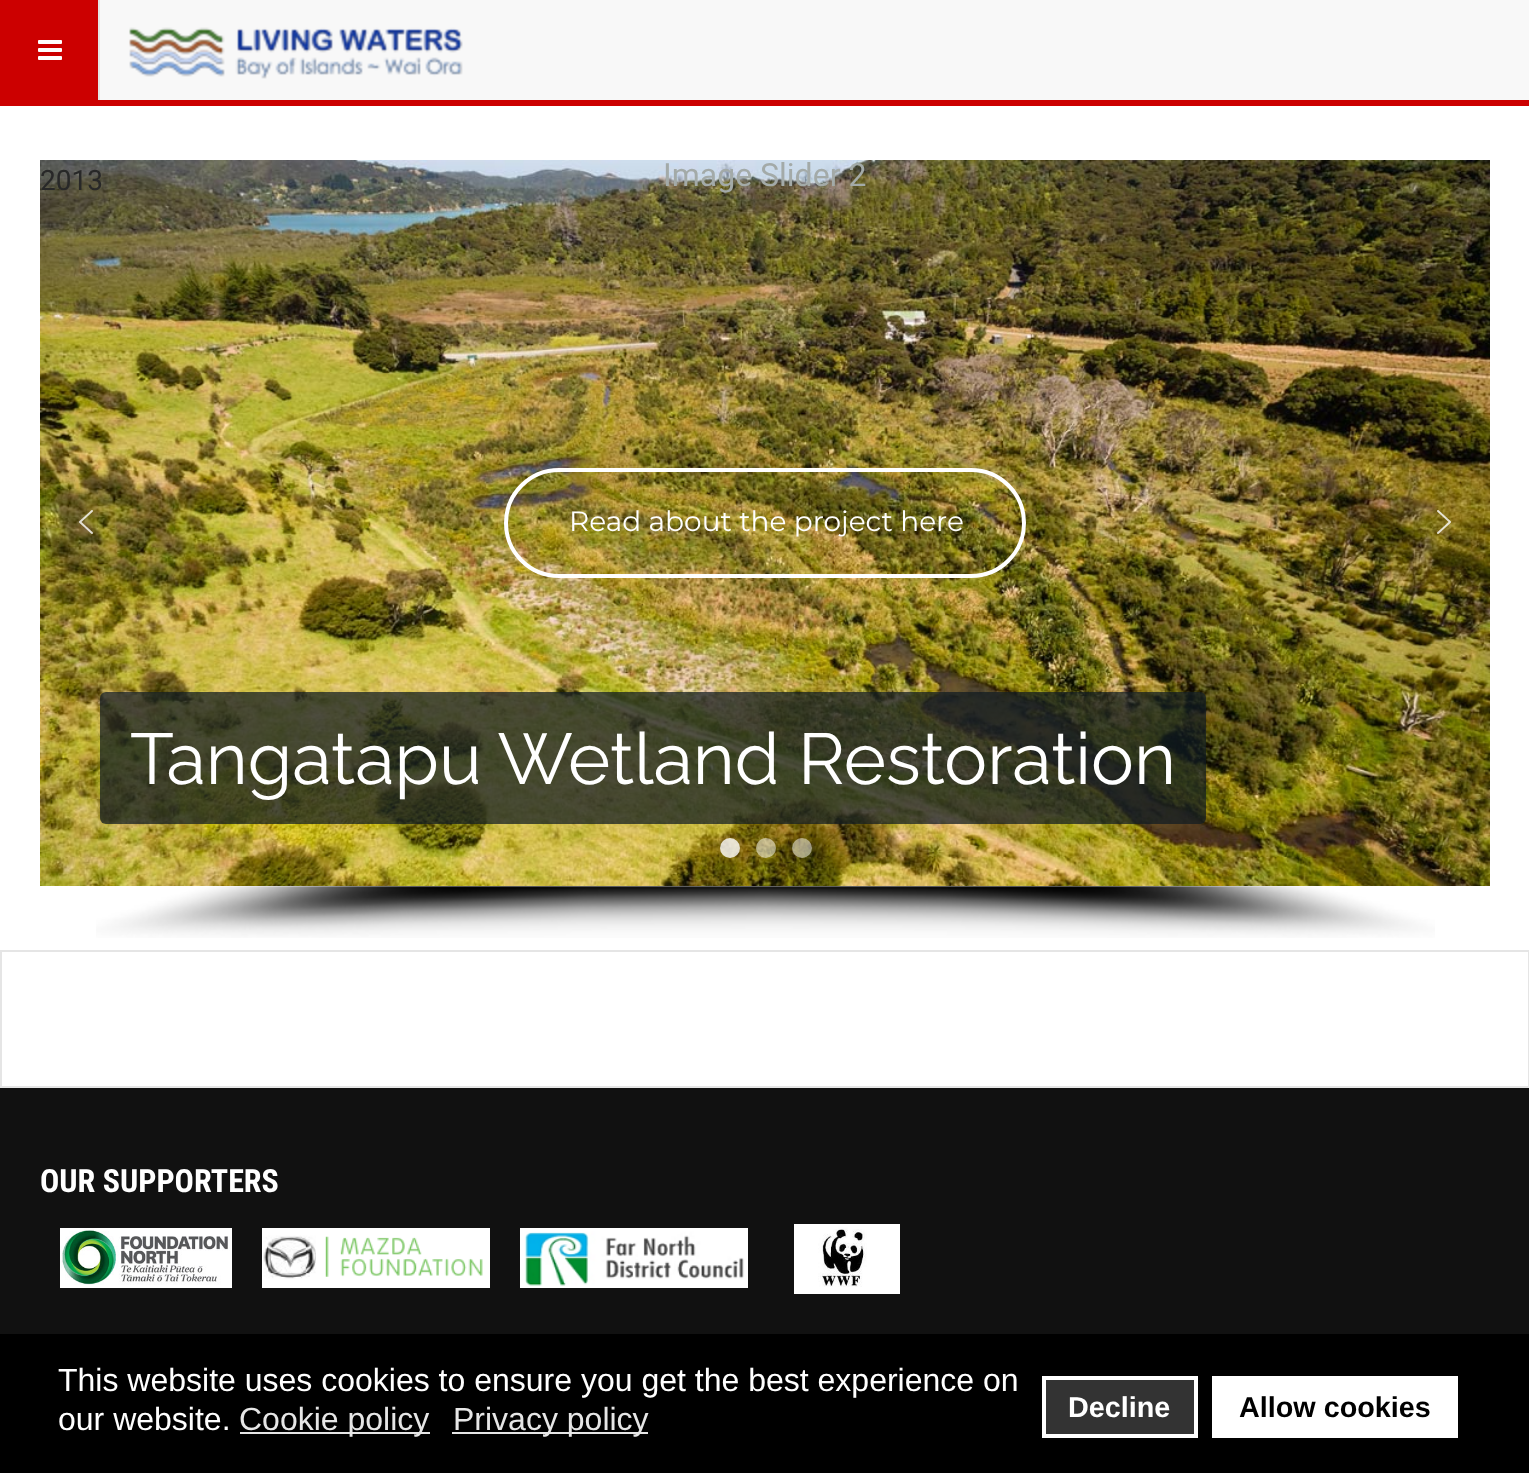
<svg xmlns="http://www.w3.org/2000/svg" width="1529" height="1473" viewBox="0 0 1529 1473">
  <rect width="100%" height="100%" fill="#fff"/>
  <path d="M100 0h1429v100H100z" fill="#f8f8f8"/>
  <path d="M0 100h1529v6H0z" fill="#c00"/>
  <path d="M0 0h98v100H0z" fill="#c00"/>
  <path d="M98 0h2v100H98z" fill="#e5e5e5"/>
  <image x="38" y="40" width="24" height="20" href="img/1.png"/>
  <image x="129" y="27" width="334" height="52" href="img/2.png"/>
  <image x="40" y="160" width="1450" height="726" href="img/3.png"/>
  <rect x="506" y="470" width="518" height="106" rx="53" fill="none" stroke="#fff" stroke-width="4"/>
  <rect x="100" y="692" width="1106" height="132" rx="6" fill="#101b22ba"/>
  <image x="79" y="510" width="14" height="24" href="img/4.png"/>
  <image x="1437" y="510" width="14" height="24" href="img/5.png"/>
  <circle cx="730" cy="848" r="10" fill="#ffffffcc"/>
  <circle cx="766" cy="848" r="10" fill="#ffffff80"/>
  <circle cx="802" cy="848" r="10" fill="#ffffff80"/>
  <image x="96" y="886" width="1339" height="52" href="img/6.png"/>
  <path d="M1 951h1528v136H1z" fill="none" stroke="#e5e5e5" stroke-width="2"/>
  <path d="M0 1088h1529v246H0z" fill="#111"/>
  <image x="60" y="1228" width="172" height="60" href="img/7.png"/>
  <image x="262" y="1228" width="228" height="60" href="img/8.png"/>
  <image x="520" y="1228" width="228" height="60" href="img/9.png"/>
  <image x="794" y="1224" width="106" height="70" href="img/10.png"/>
  <path d="M0 1334h1529v139H0z" fill="#000"/>
  <path d="M240 1432h190v2H240z" fill="#e6e6e6"/>
  <path d="M452 1432h196v2H452z" fill="#e6e6e6"/>
  <path d="M1044 1378h152v58H1044z" fill="#333" stroke="#fff" stroke-width="4"/>
  <path d="M1212 1376h246v62H1212z" fill="#fff"/>
  <text x="663" y="186" font-family="Roboto" font-size="32" fill="#a3aaa8">Image Slider 2</text>
  <text x="40" y="190" font-family="Roboto" font-size="28" fill="#282828">2013</text>
  <text x="569" y="531" font-family="Montserrat" font-size="28" fill="#fff">Read about the project here</text>
  <text x="130" y="784" font-family="Raleway" font-size="72" fill="#fff">Tangatapu Wetland Restoration</text>
  <text x="40" y="1192" font-family="Roboto Condensed" font-size="32" font-weight="bold" fill="#fff">OUR SUPPORTERS</text>
  <g font-family="Liberation Sans" font-size="32" fill="#fff">
    <text x="58" y="1391">This website uses cookies to ensure you get the best experience on</text>
    <text x="58" y="1430">our website.</text>
  </g>
  <g font-family="Liberation Sans" font-size="32" fill="#e6e6e6">
    <text x="239" y="1430">Cookie policy</text>
    <text x="453" y="1430">Privacy policy</text>
  </g>
  <text x="1068" y="1417" font-family="Liberation Sans" font-size="28.75" font-weight="bold" fill="#fff">Decline</text>
  <text x="1239" y="1417" font-family="Liberation Sans" font-size="28.75" font-weight="bold" fill="#000">Allow cookies</text>
</svg>
